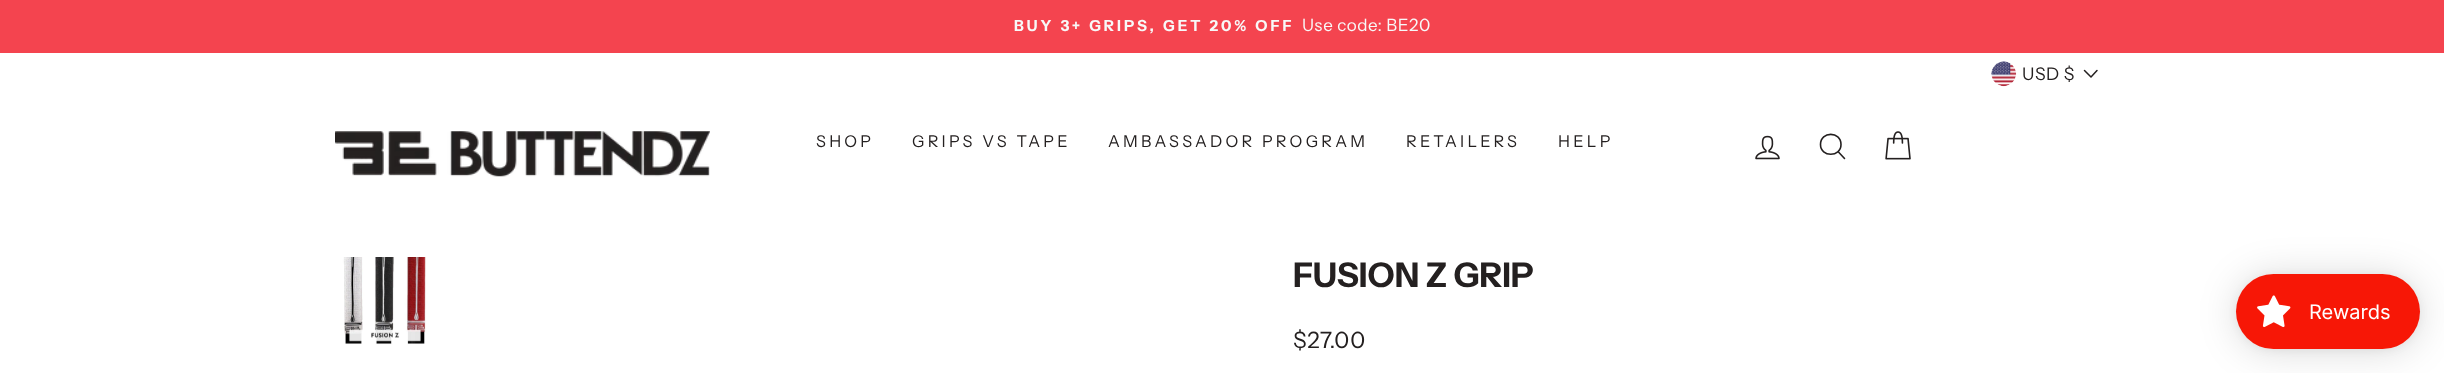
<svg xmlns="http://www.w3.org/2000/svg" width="2444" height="373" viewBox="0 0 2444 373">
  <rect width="100%" height="100%" fill="#fff"/>
  <path d="M0 0h2444v53H0z" fill="#f4444f"/>
  <image x="1991" y="61" width="26" height="26" href="img/1.png"/>
  <path d="M2084.5 70.5L2091 77L2097 70.5" fill="none" stroke="#242020" stroke-width="1.5" stroke-linecap="round" stroke-linejoin="round"/>
  <path d="M0 94h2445v120H0z" fill="#00000033" filter="blur(0.5px)"/>
  <path d="M0 94h2444v120H0z" fill="#fff"/>
  <image x="335" y="131" width="375" height="46" href="img/2.png"/>
  <image x="1755" y="135" width="25" height="25" href="img/3.png"/>
  <path d="M1841 144.5C1841 157.5 1820.5 157.5 1820.5 144.5C1820.5 131 1841 131 1841 144.5ZM1844.5 158.5L1838 151.5" fill="none" stroke="#242020" stroke-width="1.6" stroke-linecap="round" stroke-linejoin="round"/>
  <image x="1885" y="131" width="26" height="29" href="img/4.png"/>
  <image x="338" y="257" width="95" height="102" href="img/5.png"/>
  <rect x="2236" y="276" width="184" height="75" rx="37.5" fill="#00000026" filter="blur(19px)"/>
  <rect x="2236" y="275" width="184" height="75" rx="37.5" fill="#0000000d" filter="blur(4px)"/>
  <rect x="2236" y="274" width="184" height="75" rx="37.5" fill="#f71706"/>
  <image x="2257" y="295" width="34" height="33" href="img/6.png"/>
  <text x="1014" y="31" font-family="Instrument Sans" font-size="15.25" font-weight="bold" letter-spacing="3.05" fill="#f8f8f8">BUY 3+ GRIPS, GET 20% OFF</text>
  <text x="1302" y="31" font-family="Instrument Sans" font-size="17" letter-spacing="0.5" fill="#f8f8f8">Use code: BE20</text>
  <text x="2022" y="80" font-family="Instrument Sans" font-size="17.5" letter-spacing="0.5" fill="#242020">USD $</text>
  <g font-family="Instrument Sans" font-size="16.25" letter-spacing="3.25" fill="#242020">
    <text x="816" y="147">SHOP</text>
    <text x="912" y="147">GRIPS VS TAPE</text>
    <text x="1108" y="147">AMBASSADOR PROGRAM</text>
    <text x="1406" y="147">RETAILERS</text>
    <text x="1558" y="147">HELP</text>
  </g>
  <text x="1293" y="287" font-family="Instrument Sans" font-size="34" font-weight="bold" fill="#242020">FUSION Z GRIP</text>
  <text x="1293" y="348" font-family="Instrument Sans" font-size="22.5" letter-spacing="0.5" fill="#242020">$27.00</text>
  <text x="2309" y="319" font-family="Inter" font-size="20" fill="#fff">Rewards</text>
</svg>
